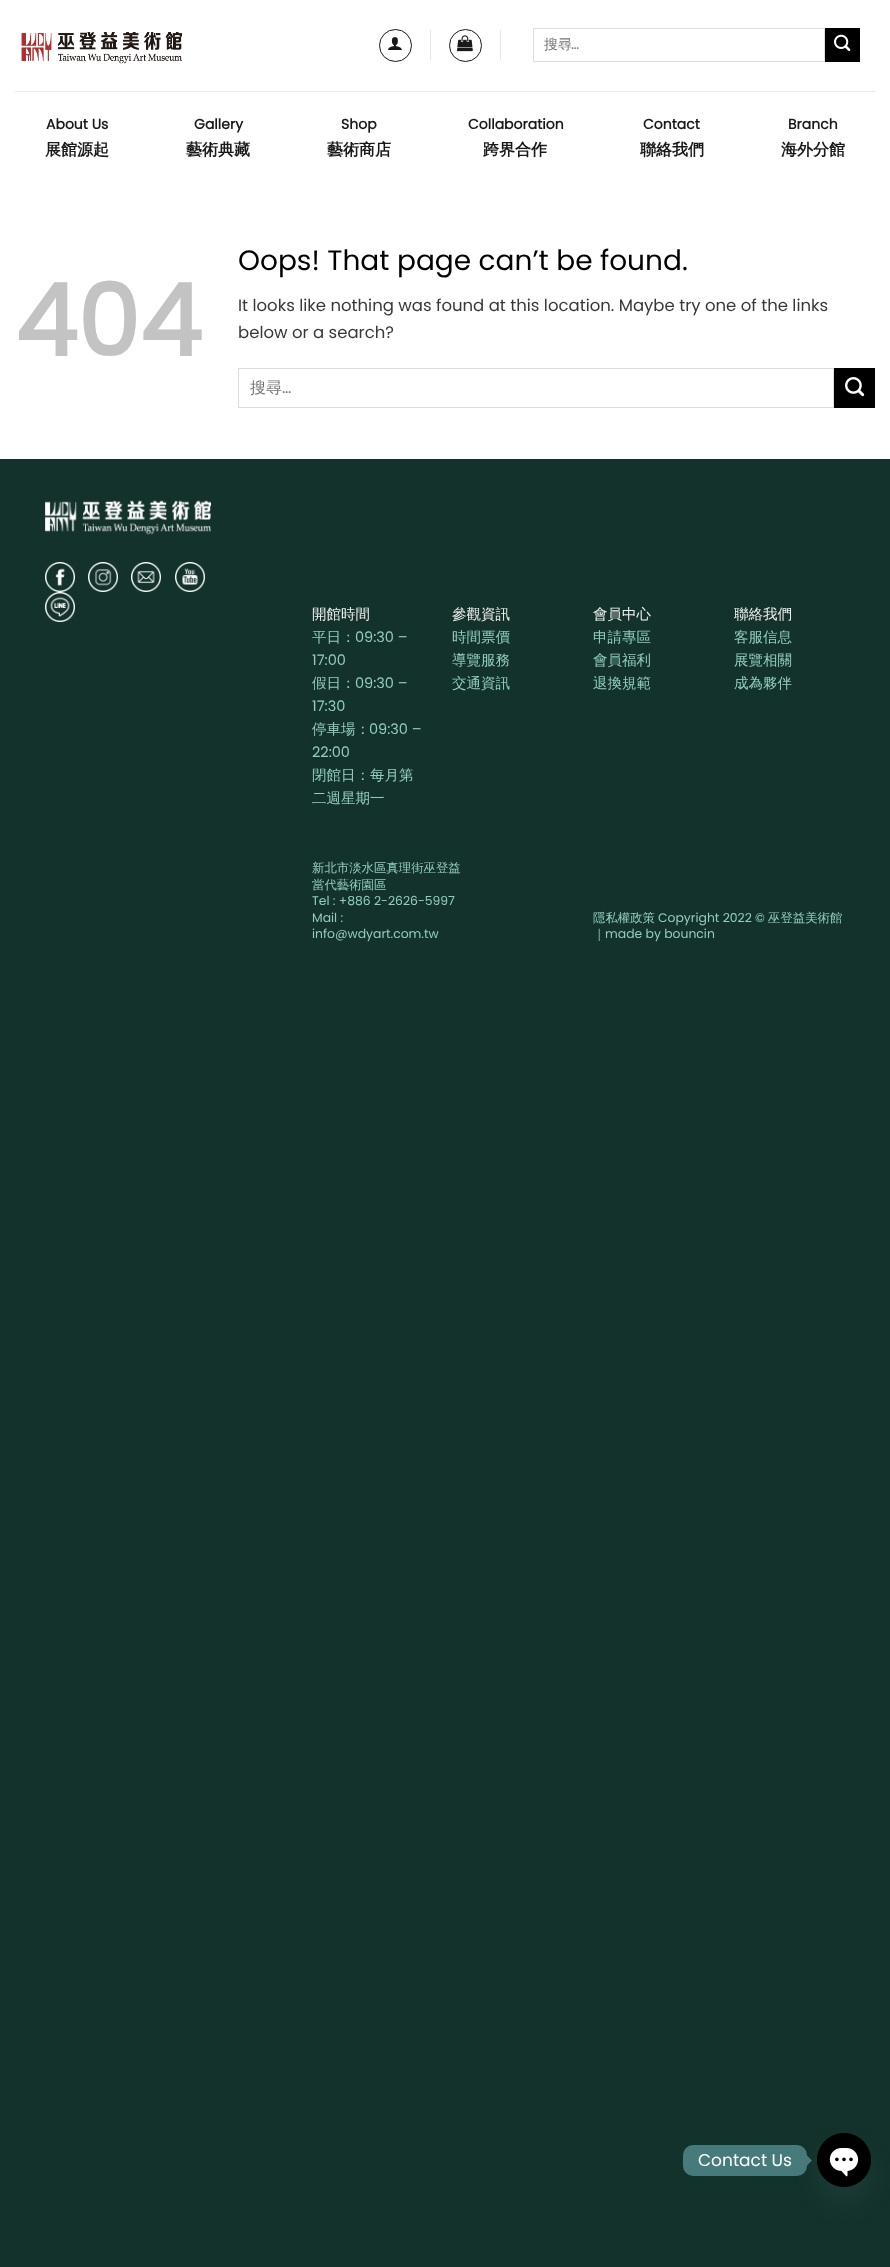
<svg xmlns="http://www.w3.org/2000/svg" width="890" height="2267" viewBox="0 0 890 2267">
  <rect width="100%" height="100%" fill="#13322b"/>
  <path d="M0 0h890v459H0z" fill="#fff"/>
  <image x="21" y="32" width="161" height="32" href="img/1.png"/>
  <circle cx="395.5" cy="45.5" r="16" fill="none" stroke="#191919"/>
  <image x="388" y="37" width="14" height="13" href="img/2.png"/>
  <path d="M430 30h1v30H430z" fill="#e6e6e6"/>
  <circle cx="465.5" cy="45.5" r="16" fill="none" stroke="#191919"/>
  <image x="457" y="35" width="16" height="17" href="img/3.png"/>
  <path d="M500 30h1v30H500z" fill="#e6e6e6"/>
  <path d="M533.5 28.5h291v33H533.5z" fill="none" stroke="#ddd"/>
  <path d="M825 28h35v34H825z" fill="#000"/>
  <image x="834" y="34" width="17" height="17" href="img/4.png"/>
  <path d="M15 91h860v1H15z" fill="#ebebeb"/>
  <path d="M238.5 368.5h595v39H238.5z" fill="none" stroke="#ddd"/>
  <path d="M834 368h41v40H834z" fill="#000"/>
  <image x="845" y="377" width="20" height="20" href="img/5.png"/>
  <image x="45" y="500" width="166" height="35" href="img/6.png"/>
  <image x="45" y="562" width="30" height="30" href="img/7.png"/>
  <image x="88" y="562" width="30" height="30" href="img/8.png"/>
  <image x="131" y="562" width="30" height="30" href="img/9.png"/>
  <image x="175" y="562" width="30" height="30" href="img/10.png"/>
  <image x="45" y="592" width="30" height="30" href="img/11.png"/>
  <rect x="683" y="2145" width="124" height="31" rx="10" fill="#477a7b"/>
  <path d="M807 2165.5V2155.5L812 2160.5Z" fill="#477a7b"/>
  <rect x="817" y="2149" width="54" height="54" rx="27" fill="#49687e29" filter="blur(12px)"/>
  <image x="817" y="2133" width="54" height="54" href="img/12.png"/>
  <text x="544" y="49" font-family="WenQuanYi Zen Hei" font-size="14" font-weight="500" fill="#757575">搜尋</text>
  <text x="571" y="49" font-family="Poppins" font-size="14" fill="#757575">…</text>
  <text x="46" y="129" font-family="Poppins" font-size="14" font-weight="bold" fill="#191919">About Us</text>
  <text x="45" y="155" font-family="WenQuanYi Zen Hei" font-size="16" font-weight="bold" fill="#191919">展館源起</text>
  <text x="194" y="129" font-family="Poppins" font-size="14" font-weight="bold" fill="#191919">Gallery</text>
  <text x="186" y="155" font-family="WenQuanYi Zen Hei" font-size="16" font-weight="bold" fill="#191919">藝術典藏</text>
  <text x="341" y="129" font-family="Poppins" font-size="14" font-weight="bold" fill="#191919">Shop</text>
  <text x="327" y="155" font-family="WenQuanYi Zen Hei" font-size="16" font-weight="bold" fill="#191919">藝術商店</text>
  <text x="468" y="129" font-family="Poppins" font-size="14" font-weight="bold" fill="#191919">Collaboration</text>
  <text x="483" y="155" font-family="WenQuanYi Zen Hei" font-size="16" font-weight="bold" fill="#191919">跨界合作</text>
  <text x="643" y="129" font-family="Poppins" font-size="14" font-weight="bold" fill="#191919">Contact</text>
  <text x="640" y="155" font-family="WenQuanYi Zen Hei" font-size="16" font-weight="bold" fill="#191919">聯絡我們</text>
  <text x="788" y="129" font-family="Poppins" font-size="14" font-weight="bold" fill="#191919">Branch</text>
  <text x="781" y="155" font-family="WenQuanYi Zen Hei" font-size="16" font-weight="bold" fill="#191919">海外分館</text>
  <text x="15" y="356" font-family="Poppins" font-size="99" font-weight="bold" fill="#c3c3c3">404</text>
  <text x="238" y="270" font-family="Poppins" font-size="28" fill="#000">Oops! That page can’t be found.</text>
  <g font-family="Poppins" font-size="16.5" fill="#383838">
    <text x="238" y="311">It looks like nothing was found at this location. Maybe try one of the links</text>
    <text x="238" y="338">below or a search?</text>
  </g>
  <text x="250" y="393" font-family="WenQuanYi Zen Hei" font-size="16" font-weight="500" fill="#757575">搜尋</text>
  <text x="282" y="393" font-family="Poppins" font-size="16" fill="#757575">…</text>
  <text x="312" y="619" font-family="WenQuanYi Zen Hei" font-size="14.5" font-weight="500" fill="#f1f1f1">開館時間</text>
  <text x="312" y="642" font-family="WenQuanYi Zen Hei" font-size="14.5" font-weight="500" fill="#93cdbe">平日：</text>
  <g font-family="Poppins" font-size="14.5" fill="#93cdbe">
    <text x="355" y="642">09:30 –</text>
    <text x="312" y="665">17:00</text>
  </g>
  <text x="312" y="688" font-family="WenQuanYi Zen Hei" font-size="14.5" font-weight="500" fill="#93cdbe">假日：</text>
  <g font-family="Poppins" font-size="14.5" fill="#93cdbe">
    <text x="355" y="688">09:30 –</text>
    <text x="312" y="711">17:30</text>
  </g>
  <text x="312" y="734" font-family="WenQuanYi Zen Hei" font-size="14.5" font-weight="500" fill="#93cdbe">停車場：</text>
  <g font-family="Poppins" font-size="14.5" fill="#93cdbe">
    <text x="369" y="734">09:30 –</text>
    <text x="312" y="757">22:00</text>
  </g>
  <g font-family="WenQuanYi Zen Hei" font-size="14.5" font-weight="500" fill="#93cdbe">
    <text x="312" y="780">閉館日：每月第</text>
    <text x="312" y="803">二週星期一</text>
  </g>
  <text x="452" y="619" font-family="WenQuanYi Zen Hei" font-size="14.5" font-weight="500" fill="#f1f1f1">參觀資訊</text>
  <g font-family="WenQuanYi Zen Hei" font-size="14.5" font-weight="500" fill="#93cdbe">
    <text x="452" y="642">時間票價</text>
    <text x="452" y="665">導覽服務</text>
    <text x="452" y="688">交通資訊</text>
  </g>
  <text x="593" y="619" font-family="WenQuanYi Zen Hei" font-size="14.5" font-weight="500" fill="#f1f1f1">會員中心</text>
  <g font-family="WenQuanYi Zen Hei" font-size="14.5" font-weight="500" fill="#93cdbe">
    <text x="593" y="642">申請專區</text>
    <text x="593" y="665">會員福利</text>
    <text x="593" y="688">退換規範</text>
  </g>
  <text x="734" y="619" font-family="WenQuanYi Zen Hei" font-size="14.5" font-weight="500" fill="#f1f1f1">聯絡我們</text>
  <g font-family="WenQuanYi Zen Hei" font-size="14.5" font-weight="500" fill="#93cdbe">
    <text x="734" y="642">客服信息</text>
    <text x="734" y="665">展覽相關</text>
    <text x="734" y="688">成為夥伴</text>
  </g>
  <g font-family="WenQuanYi Zen Hei" font-size="12.4" font-weight="500" fill="#93cdbe">
    <text x="312" y="872">新北市淡水區真理街巫登益</text>
    <text x="312" y="889">當代藝術園區</text>
  </g>
  <g font-family="Poppins" font-size="12.4" fill="#93cdbe">
    <text x="312" y="905">Tel : +886 2-2626-5997</text>
    <text x="312" y="922">Mail :</text>
    <text x="312" y="938">info@wdyart.com.tw</text>
  </g>
  <text x="593" y="922" font-family="WenQuanYi Zen Hei" font-size="12.4" font-weight="500" fill="#93cdbe">隱私權政策</text>
  <text x="658" y="922" font-family="Poppins" font-size="12.4" fill="#93cdbe">Copyright 2022 ©</text>
  <g font-family="WenQuanYi Zen Hei" font-size="12.4" font-weight="500" fill="#93cdbe">
    <text x="768" y="922">巫登益美術館</text>
    <text x="593" y="938">｜</text>
  </g>
  <text x="605" y="938" font-family="Poppins" font-size="12.4" fill="#93cdbe">made by bouncin</text>
  <text x="698" y="2166" font-family="Poppins" font-size="17" fill="#fff">Contact Us</text>
</svg>
